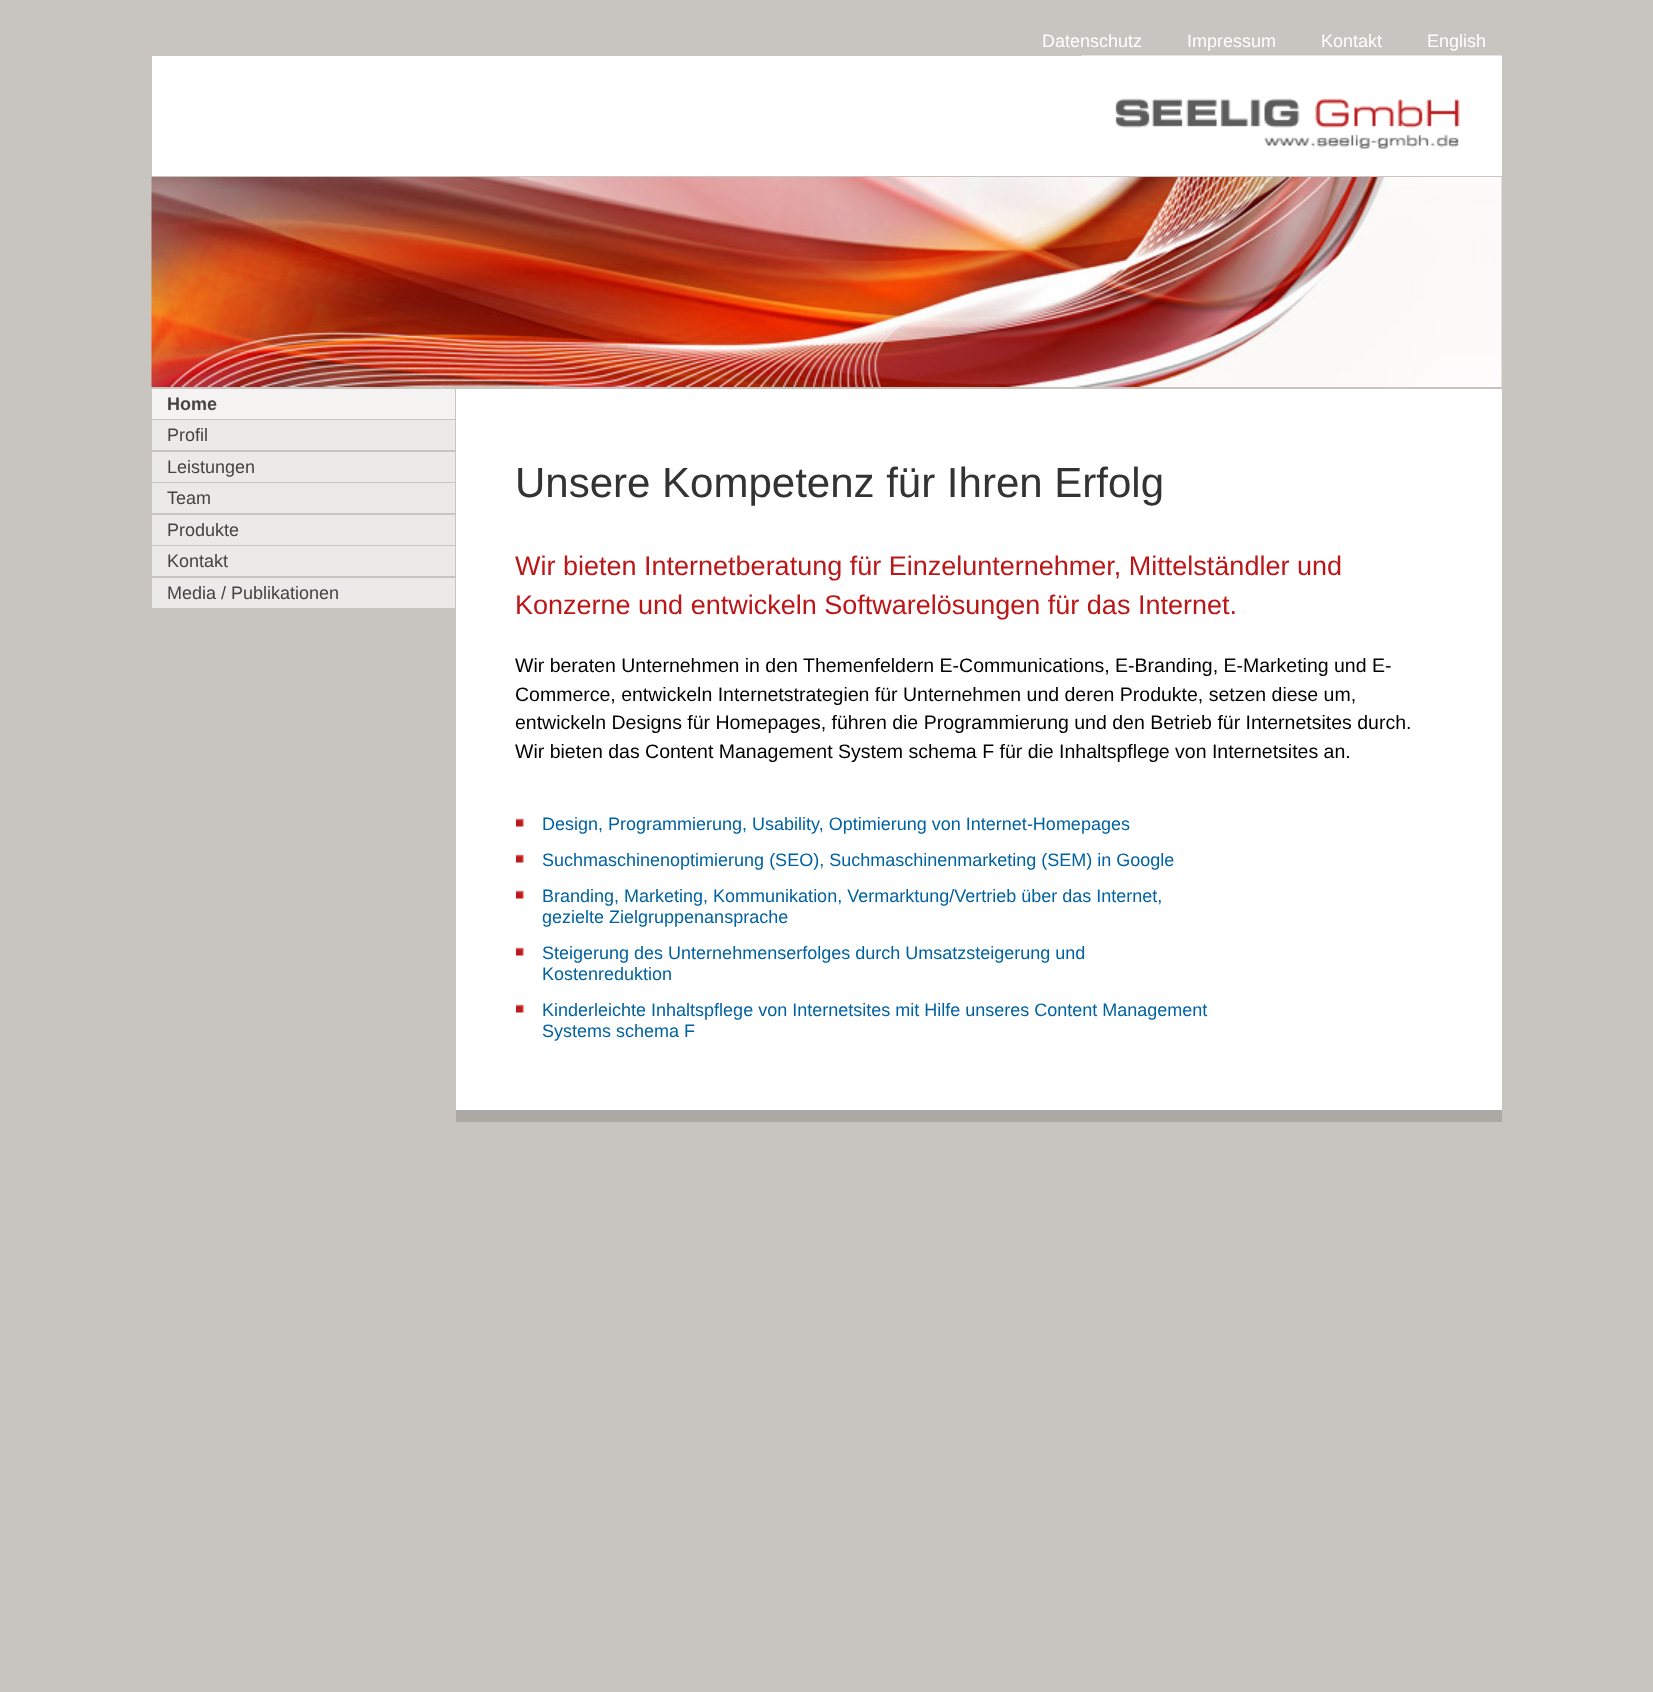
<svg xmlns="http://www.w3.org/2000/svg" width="1653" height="1692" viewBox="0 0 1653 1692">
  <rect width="100%" height="100%" fill="#c8c4c0"/>
  <path d="M152 56h1350v120H152z" fill="#fff"/>
  <image x="1081" y="55" width="421" height="94" href="img/1.png"/>
  <image x="151" y="177" width="1351" height="210" href="img/2.png"/>
  <path d="M152 389h303v30H152z" fill="#f5f3f2"/>
  <path d="M152 420h303v30H152z" fill="#eceae9"/>
  <path d="M152 452h303v30H152z" fill="#eceae9"/>
  <path d="M152 483h303v30H152z" fill="#eceae9"/>
  <path d="M152 515h303v30H152z" fill="#eceae9"/>
  <path d="M152 546h303v30H152z" fill="#eceae9"/>
  <path d="M152 578h303v30H152z" fill="#eceae9"/>
  <path d="M456 389h1046v721H456z" fill="#fff"/>
  <image x="516" y="818" width="8" height="9" href="img/3.png"/>
  <image x="516" y="854" width="8" height="9" href="img/3.png"/>
  <image x="516" y="890" width="8" height="9" href="img/3.png"/>
  <image x="516" y="947" width="8" height="9" href="img/3.png"/>
  <image x="516" y="1004" width="8" height="9" href="img/3.png"/>
  <path d="M456 1110h1046v12H456z" fill="#aca8a4"/>
  <g font-family="Liberation Sans" font-size="18" fill="#fff">
    <text x="1042" y="47">Datenschutz</text>
    <text x="1187" y="47">Impressum</text>
    <text x="1321" y="47">Kontakt</text>
    <text x="1427" y="47">English</text>
  </g>
  <text x="167" y="410" font-family="Liberation Sans" font-size="18" font-weight="bold" fill="#444">Home</text>
  <g font-family="Liberation Sans" font-size="18" fill="#444">
    <text x="167" y="441">Profil</text>
    <text x="167" y="473">Leistungen</text>
    <text x="167" y="504">Team</text>
    <text x="167" y="536">Produkte</text>
    <text x="167" y="567">Kontakt</text>
    <text x="167" y="599">Media / Publikationen</text>
  </g>
  <text x="515" y="497" font-family="Liberation Sans" font-size="42" fill="#333">Unsere Kompetenz für Ihren Erfolg</text>
  <g font-family="Liberation Sans" font-size="27" fill="#bb1718">
    <text x="515" y="575">Wir bieten Internetberatung für Einzelunternehmer, Mittelständler und</text>
    <text x="515" y="614">Konzerne und entwickeln Softwarelösungen für das Internet.</text>
  </g>
  <g font-family="Liberation Sans" font-size="19.5" fill="#000">
    <text x="515" y="672">Wir beraten Unternehmen in den Themenfeldern E-Communications, E-Branding, E-Marketing und E-</text>
    <text x="515" y="701">Commerce, entwickeln Internetstrategien für Unternehmen und deren Produkte, setzen diese um,</text>
    <text x="515" y="729">entwickeln Designs für Homepages, führen die Programmierung und den Betrieb für Internetsites durch.</text>
    <text x="515" y="758">Wir bieten das Content Management System schema F für die Inhaltspflege von Internetsites an.</text>
  </g>
  <g font-family="Liberation Sans" font-size="18" fill="#0062a0">
    <text x="542" y="830">Design, Programmierung, Usability, Optimierung von Internet-Homepages</text>
    <text x="542" y="866">Suchmaschinenoptimierung (SEO), Suchmaschinenmarketing (SEM) in Google</text>
    <text x="542" y="902">Branding, Marketing, Kommunikation, Vermarktung/Vertrieb über das Internet,</text>
    <text x="542" y="923">gezielte Zielgruppenansprache</text>
    <text x="542" y="959">Steigerung des Unternehmenserfolges durch Umsatzsteigerung und</text>
    <text x="542" y="980">Kostenreduktion</text>
    <text x="542" y="1016">Kinderleichte Inhaltspflege von Internetsites mit Hilfe unseres Content Management</text>
    <text x="542" y="1037">Systems schema F</text>
  </g>
</svg>
